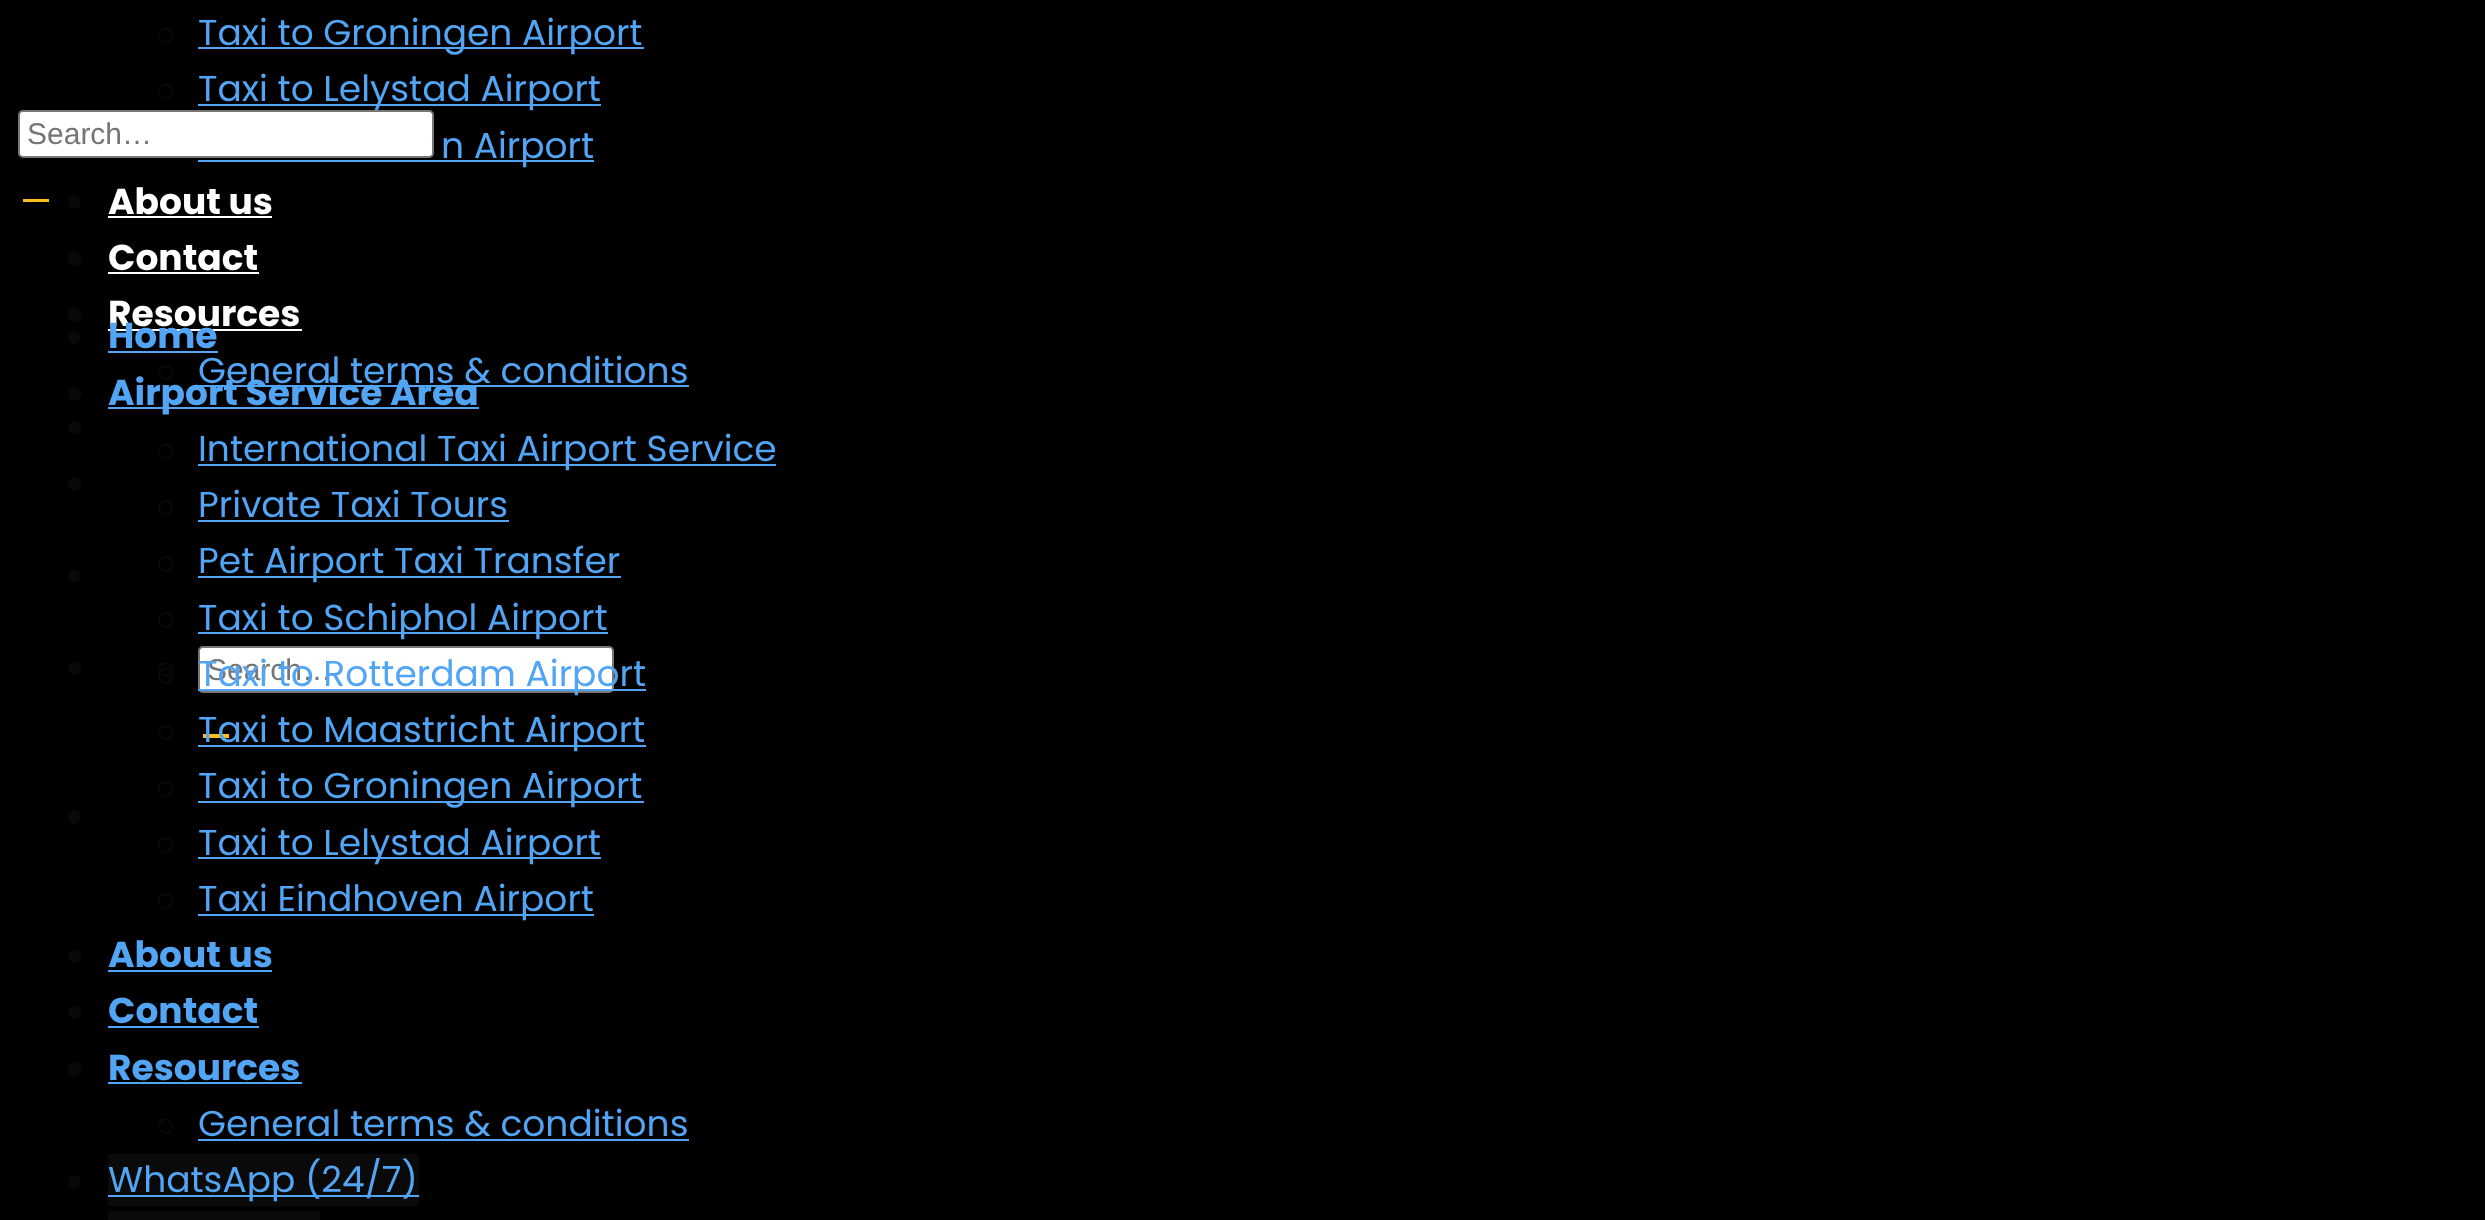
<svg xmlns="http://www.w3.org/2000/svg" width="2485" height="1220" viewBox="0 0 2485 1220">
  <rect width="100%" height="100%" fill="#000"/>
  <path d="M23 199h26v3H23z" fill="#ffbc1e"/>
  <rect x="159" y="28" width="13" height="14" rx="6.5" fill="none" stroke="#0a0909" stroke-width="2"/>
  <path d="M198 47h446v2H198z" fill="#51a5f4"/>
  <rect x="159" y="84" width="13" height="14" rx="6.5" fill="none" stroke="#0a0909" stroke-width="2"/>
  <path d="M198 104h403v2H198z" fill="#51a5f4"/>
  <path d="M198 160h396v2H198z" fill="#51a5f4"/>
  <circle cx="74.5" cy="202.5" r="6.5" fill="#0a0909"/>
  <path d="M108 216h164v2H108z" fill="#fff"/>
  <rect x="68" y="252" width="13" height="14" rx="6.5" fill="#0a0909"/>
  <path d="M108 272h151v2H108z" fill="#fff"/>
  <rect x="68" y="308" width="13" height="14" rx="6.5" fill="#0a0909"/>
  <path d="M108 329h194v2H108z" fill="#fff"/>
  <circle cx="165.5" cy="372.5" r="6.5" fill="none" stroke="#0a0909" stroke-width="2"/>
  <path d="M198 385h491v2H198z" fill="#51a5f4"/>
  <circle cx="74.5" cy="427.5" r="6.5" fill="#0a0909"/>
  <rect x="68" y="477" width="13" height="14" rx="6.5" fill="#0a0909"/>
  <rect x="68" y="569" width="13" height="14" rx="6.5" fill="#0a0909"/>
  <circle cx="74.5" cy="668.5" r="6.5" fill="#0a0909"/>
  <circle cx="165.5" cy="669.5" r="6.5" fill="none" stroke="#0a0909" stroke-width="2"/>
  <rect x="199" y="647" width="414" height="45" rx="4" fill="#fff" stroke="#767676" stroke-width="2"/>
  <path d="M203 734h26v4H203z" fill="#ffbc1e"/>
  <rect x="68" y="810" width="13" height="14" rx="6.5" fill="#0a0909"/>
  <circle cx="74.5" cy="337.5" r="6.5" fill="#0a0909"/>
  <path d="M108 351h110v2H108z" fill="#51a5f4"/>
  <rect x="68" y="387" width="13" height="14" rx="6.5" fill="#0a0909"/>
  <path d="M108 407h371v2H108z" fill="#51a5f4"/>
  <rect x="159" y="444" width="13" height="14" rx="6.5" fill="none" stroke="#0a0909" stroke-width="2"/>
  <path d="M198 464h578v2H198z" fill="#51a5f4"/>
  <circle cx="165.5" cy="507.5" r="6.5" fill="none" stroke="#0a0909" stroke-width="2"/>
  <path d="M198 520h311v2H198z" fill="#51a5f4"/>
  <rect x="159" y="557" width="13" height="14" rx="6.5" fill="none" stroke="#0a0909" stroke-width="2"/>
  <path d="M198 576h423v2H198z" fill="#51a5f4"/>
  <rect x="159" y="613" width="13" height="14" rx="6.5" fill="none" stroke="#0a0909" stroke-width="2"/>
  <path d="M198 632h410v2H198z" fill="#51a5f4"/>
  <rect x="159" y="669" width="13" height="14" rx="6.5" fill="none" stroke="#0a0909" stroke-width="2"/>
  <path d="M198 689h448v2H198z" fill="#51a5f4"/>
  <circle cx="165.5" cy="732.5" r="6.5" fill="none" stroke="#0a0909" stroke-width="2"/>
  <path d="M198 745h448v2H198z" fill="#51a5f4"/>
  <rect x="159" y="782" width="13" height="14" rx="6.5" fill="none" stroke="#0a0909" stroke-width="2"/>
  <path d="M198 801h446v2H198z" fill="#51a5f4"/>
  <rect x="159" y="838" width="13" height="14" rx="6.5" fill="none" stroke="#0a0909" stroke-width="2"/>
  <path d="M198 857h403v2H198z" fill="#51a5f4"/>
  <rect x="159" y="894" width="13" height="14" rx="6.5" fill="none" stroke="#0a0909" stroke-width="2"/>
  <path d="M198 914h396v2H198z" fill="#51a5f4"/>
  <circle cx="74.5" cy="956.5" r="6.5" fill="#0a0909"/>
  <path d="M108 970h164v2H108z" fill="#51a5f4"/>
  <circle cx="74.5" cy="1012.5" r="6.5" fill="#0a0909"/>
  <path d="M108 1026h151v2H108z" fill="#51a5f4"/>
  <rect x="68" y="1062" width="13" height="14" rx="6.5" fill="#0a0909"/>
  <path d="M108 1082h194v2H108z" fill="#51a5f4"/>
  <rect x="159" y="1119" width="13" height="14" rx="6.5" fill="none" stroke="#0a0909" stroke-width="2"/>
  <path d="M198 1139h491v2H198z" fill="#51a5f4"/>
  <circle cx="74.5" cy="1181.5" r="6.5" fill="#0a0909"/>
  <rect x="108" y="1154" width="311" height="52" rx="2" fill="#0a0a0a"/>
  <path d="M108 1195h311v2H108z" fill="#51a5f4"/>
  <path d="M108 1211h212v9H108z" fill="#0a0a0a"/>
  <g font-family="Poppins" font-size="36" fill="#51a5f4">
    <text x="198" y="45">Taxi to Groningen Airport</text>
    <text x="198" y="101">Taxi to Lelystad Airport</text>
  </g>
  <rect x="19" y="111" width="414" height="46" rx="4" fill="#fff" stroke="#767676" stroke-width="2"/>
  <text x="27" y="144" font-family="Liberation Sans" font-size="30" fill="#757575">Search…</text>
  <text x="441" y="158" font-family="Poppins" font-size="36" fill="#51a5f4">n Airport</text>
  <g font-family="Poppins" font-size="36" font-weight="bold" fill="#fff">
    <text x="108" y="214">About us</text>
    <text x="108" y="270">Contact</text>
    <text x="108" y="326">Resources</text>
  </g>
  <text x="198" y="383" font-family="Poppins" font-size="36" fill="#51a5f4">General terms &amp; conditions</text>
  <text x="207" y="680" font-family="Liberation Sans" font-size="30" fill="#757575">Search…</text>
  <g font-family="Poppins" font-size="36" font-weight="bold" fill="#51a5f4">
    <text x="108" y="348">Home</text>
    <text x="108" y="405">Airport Service Area</text>
  </g>
  <g font-family="Poppins" font-size="36" fill="#51a5f4">
    <text x="198" y="461">International Taxi Airport Service</text>
    <text x="198" y="517">Private Taxi Tours</text>
    <text x="198" y="573">Pet Airport Taxi Transfer</text>
    <text x="198" y="630">Taxi to Schiphol Airport</text>
    <text x="198" y="686">Taxi to Rotterdam Airport</text>
    <text x="198" y="742">Taxi to Maastricht Airport</text>
    <text x="198" y="798">Taxi to Groningen Airport</text>
    <text x="198" y="855">Taxi to Lelystad Airport</text>
    <text x="198" y="911">Taxi Eindhoven Airport</text>
  </g>
  <g font-family="Poppins" font-size="36" font-weight="bold" fill="#51a5f4">
    <text x="108" y="967">About us</text>
    <text x="108" y="1023">Contact</text>
    <text x="108" y="1080">Resources</text>
  </g>
  <g font-family="Poppins" font-size="36" fill="#51a5f4">
    <text x="198" y="1136">General terms &amp; conditions</text>
    <text x="108" y="1192">WhatsApp (24/7)</text>
  </g>
</svg>
